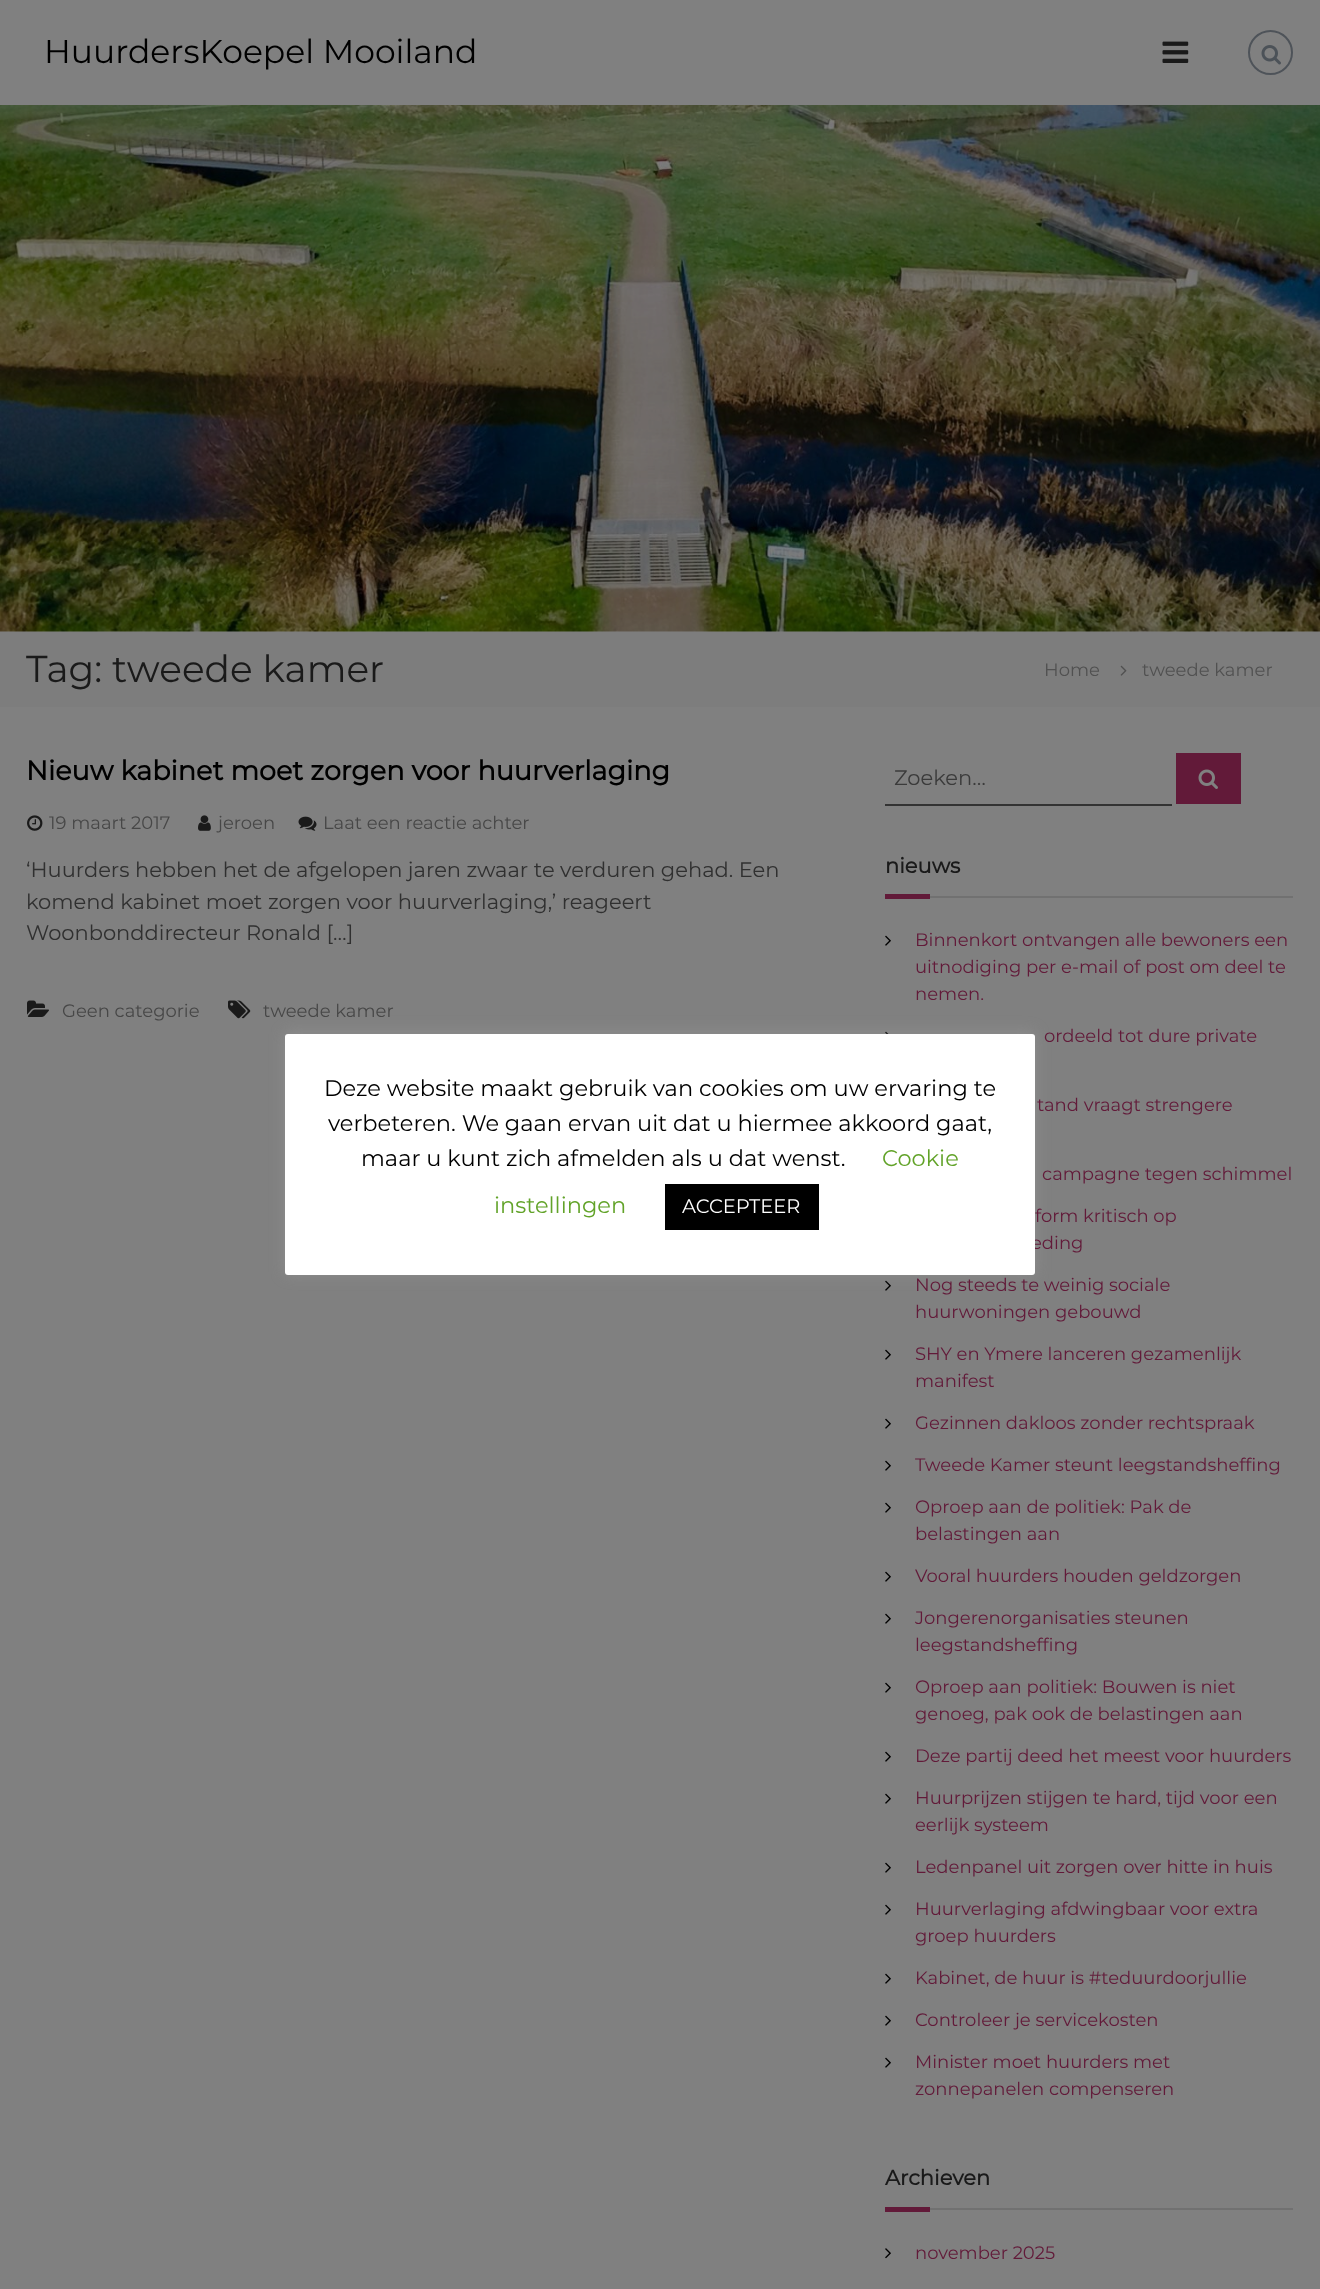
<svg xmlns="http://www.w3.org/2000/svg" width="1320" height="2289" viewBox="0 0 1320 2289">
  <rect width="100%" height="100%" fill="#808080"/>
  <image x="1162" y="41" width="27" height="22" href="img/1.png"/>
  <circle cx="1270.5" cy="52.5" r="21.5" fill="none" stroke="#4e5359" stroke-width="2"/>
  <image x="1261" y="45" width="20" height="20" href="img/2.png"/>
  <image x="0" y="105" width="1320" height="527" href="img/3.png"/>
  <path d="M0 632h1320v75H0z" fill="#7d7d7d"/>
  <image x="1120" y="665" width="7" height="11" href="img/4.png"/>
  <image x="27" y="815" width="16" height="16" href="img/5.png"/>
  <image x="198" y="815" width="13" height="16" href="img/6.png"/>
  <image x="298" y="816" width="19" height="15" href="img/7.png"/>
  <image x="27" y="1000" width="22" height="17" href="img/8.png"/>
  <image x="228" y="1000" width="23" height="19" href="img/9.png"/>
  <path d="M885 804h287v2H885z" fill="#333"/>
  <path d="M1176 753h65v51H1176z" fill="#621a39"/>
  <image x="1198" y="769" width="20" height="20" href="img/10.png"/>
  <path d="M885 894h45v5H885z" fill="#621a39"/>
  <path d="M930 896h363v2H930z" fill="#717171"/>
  <image x="885" y="935" width="6" height="11" href="img/11.png"/>
  <image x="885" y="1031" width="4" height="3" href="img/12.png"/>
  <image x="885" y="1280" width="6" height="11" href="img/11.png"/>
  <image x="885" y="1349" width="6" height="11" href="img/11.png"/>
  <image x="885" y="1418" width="6" height="11" href="img/11.png"/>
  <image x="885" y="1460" width="6" height="11" href="img/11.png"/>
  <image x="885" y="1502" width="6" height="11" href="img/11.png"/>
  <image x="885" y="1571" width="6" height="11" href="img/11.png"/>
  <image x="885" y="1613" width="6" height="11" href="img/11.png"/>
  <image x="885" y="1682" width="6" height="11" href="img/11.png"/>
  <image x="885" y="1751" width="6" height="11" href="img/11.png"/>
  <image x="885" y="1793" width="6" height="11" href="img/11.png"/>
  <image x="885" y="1862" width="6" height="11" href="img/11.png"/>
  <image x="885" y="1904" width="6" height="11" href="img/11.png"/>
  <image x="885" y="1973" width="6" height="11" href="img/11.png"/>
  <image x="885" y="2015" width="6" height="11" href="img/11.png"/>
  <image x="885" y="2057" width="6" height="11" href="img/11.png"/>
  <path d="M885 2207h45v5H885z" fill="#621a39"/>
  <path d="M930 2208h363v2H930z" fill="#717171"/>
  <image x="885" y="2248" width="6" height="11" href="img/13.png"/>
  <rect x="285" y="1032" width="750" height="242" rx="3" fill="#acabab4d" filter="blur(7.5px)"/>
  <text x="44" y="63" font-family="Montserrat" font-size="33" fill="#000">HuurdersKoepel Mooiland</text>
  <text x="26" y="682" font-family="Montserrat" font-size="37.5" fill="#1a1a1a">Tag: tweede kamer</text>
  <g font-family="Montserrat" font-size="18" fill="#515151">
    <text x="1044" y="676">Home</text>
    <text x="1142" y="676">tweede kamer</text>
  </g>
  <text x="26" y="780" font-family="Montserrat" font-size="27" font-weight="bold" fill="#000">Nieuw kabinet moet zorgen voor huurverlaging</text>
  <g font-family="Montserrat" font-size="18" fill="#474747">
    <text x="49" y="829">19 maart 2017</text>
    <text x="218" y="829">jeroen</text>
    <text x="323" y="829">Laat een reactie achter</text>
  </g>
  <g font-family="Montserrat" font-size="21" fill="#303030">
    <text x="26" y="877">‘Huurders hebben het de afgelopen jaren zwaar te verduren gehad. Een</text>
    <text x="26" y="909">komend kabinet moet zorgen voor huurverlaging,’ reageert</text>
    <text x="26" y="940">Woonbonddirecteur Ronald […]</text>
  </g>
  <g font-family="Montserrat" font-size="18" fill="#474747">
    <text x="62" y="1017">Geen categorie</text>
    <text x="263" y="1017">tweede kamer</text>
  </g>
  <text x="894" y="785" font-family="Montserrat" font-size="21" fill="#3b3b3b">Zoeken…</text>
  <text x="885" y="873" font-family="Montserrat" font-size="21" font-weight="bold" fill="#1a1a1a">nieuws</text>
  <g font-family="Montserrat" font-size="18" fill="#621a39">
    <text x="915" y="946">Binnenkort ontvangen alle bewoners een</text>
    <text x="915" y="973">uitnodiging per e-mail of post om deel te</text>
    <text x="915" y="1000">nemen.</text>
    <text x="1044" y="1042">ordeeld tot dure private</text>
    <text x="1037" y="1111">tand vraagt strengere</text>
    <text x="1042" y="1180">campagne tegen schimmel</text>
    <text x="1035" y="1222">form kritisch op</text>
    <text x="1031" y="1249">eding</text>
    <text x="915" y="1291">Nog steeds te weinig sociale</text>
    <text x="915" y="1318">huurwoningen gebouwd</text>
    <text x="915" y="1360">SHY en Ymere lanceren gezamenlijk</text>
    <text x="915" y="1387">manifest</text>
    <text x="915" y="1429">Gezinnen dakloos zonder rechtspraak</text>
    <text x="915" y="1471">Tweede Kamer steunt leegstandsheffing</text>
    <text x="915" y="1513">Oproep aan de politiek: Pak de</text>
    <text x="915" y="1540">belastingen aan</text>
    <text x="915" y="1582">Vooral huurders houden geldzorgen</text>
    <text x="915" y="1624">Jongerenorganisaties steunen</text>
    <text x="915" y="1651">leegstandsheffing</text>
    <text x="915" y="1693">Oproep aan politiek: Bouwen is niet</text>
    <text x="915" y="1720">genoeg, pak ook de belastingen aan</text>
    <text x="915" y="1762">Deze partij deed het meest voor huurders</text>
    <text x="915" y="1804">Huurprijzen stijgen te hard, tijd voor een</text>
    <text x="915" y="1831">eerlijk systeem</text>
    <text x="915" y="1873">Ledenpanel uit zorgen over hitte in huis</text>
    <text x="915" y="1915">Huurverlaging afdwingbaar voor extra</text>
    <text x="915" y="1942">groep huurders</text>
    <text x="915" y="1984">Kabinet, de huur is #teduurdoorjullie</text>
    <text x="915" y="2026">Controleer je servicekosten</text>
    <text x="915" y="2068">Minister moet huurders met</text>
    <text x="915" y="2095">zonnepanelen compenseren</text>
  </g>
  <text x="885" y="2185" font-family="Montserrat" font-size="21" font-weight="bold" fill="#1a1a1a">Archieven</text>
  <text x="915" y="2259" font-family="Montserrat" font-size="18" fill="#621a39">november 2025</text>
  <rect x="285" y="1034" width="750" height="241" rx="3" fill="#fff"/>
  <g font-family="Montserrat" font-size="22.5" fill="#000">
    <text x="324" y="1096">Deze website maakt gebruik van cookies om uw ervaring te</text>
    <text x="328" y="1131">verbeteren. We gaan ervan uit dat u hiermee akkoord gaat,</text>
    <text x="361" y="1166">maar u kunt zich afmelden als u dat wenst.</text>
  </g>
  <g font-family="Montserrat" font-size="22.5" fill="#62a329">
    <text x="882" y="1166">Cookie</text>
    <text x="494" y="1213">instellingen</text>
  </g>
  <path d="M665 1184h154v46H665z" fill="#000"/>
  <text x="682" y="1213" font-family="Montserrat" font-size="19.5" fill="#fff">ACCEPTEER</text>
</svg>
